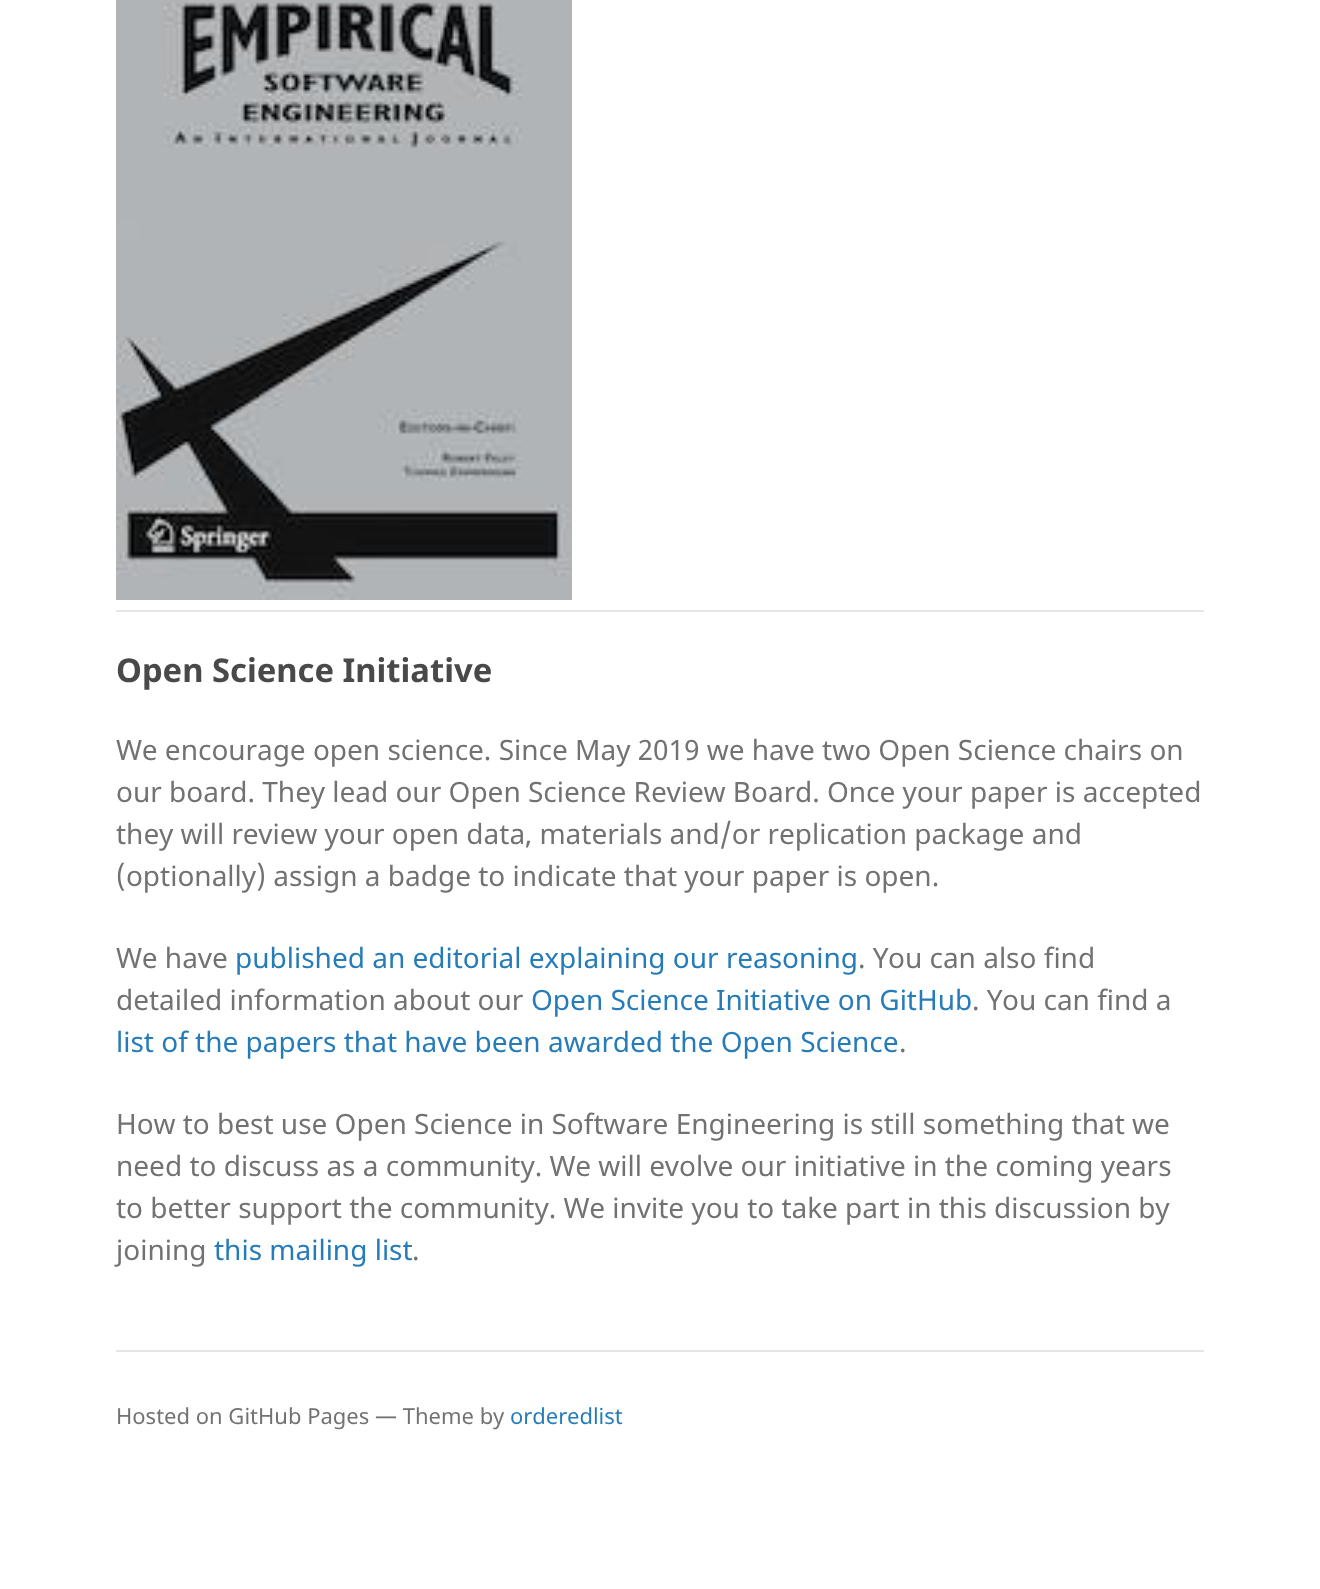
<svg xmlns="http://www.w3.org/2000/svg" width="1320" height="1589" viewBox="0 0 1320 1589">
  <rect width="100%" height="100%" fill="#fff"/>
  <image x="116" y="0" width="456" height="600" href="img/1.png"/>
  <path d="M116 610h1088v2H116z" fill="#e5e5e5"/>
  <path d="M116 1350h1088v2H116z" fill="#e5e5e5"/>
  <text x="116" y="682" font-family="Noto Sans" font-size="32.75" font-weight="bold" fill="#494949">Open Science Initiative</text>
  <g font-family="Noto Sans" font-size="28" fill="#727272">
    <text x="116" y="760">We encourage open science. Since May 2019 we have two Open Science chairs on</text>
    <text x="116" y="802">our board. They lead our Open Science Review Board. Once your paper is accepted</text>
    <text x="116" y="844">they will review your open data, materials and/or replication package and</text>
    <text x="116" y="886">(optionally) assign a badge to indicate that your paper is open.</text>
    <text x="116" y="968">We have</text>
  </g>
  <text x="235" y="968" font-family="Noto Sans" font-size="28" fill="#267cb9">published an editorial explaining our reasoning</text>
  <g font-family="Noto Sans" font-size="28" fill="#727272">
    <text x="858" y="968">. You can also find</text>
    <text x="116" y="1010">detailed information about our</text>
  </g>
  <text x="531" y="1010" font-family="Noto Sans" font-size="28" fill="#267cb9">Open Science Initiative on GitHub</text>
  <text x="972" y="1010" font-family="Noto Sans" font-size="28" fill="#727272">. You can find a</text>
  <text x="116" y="1052" font-family="Noto Sans" font-size="28" fill="#267cb9">list of the papers that have been awarded the Open Science</text>
  <g font-family="Noto Sans" font-size="28" fill="#727272">
    <text x="899" y="1052">.</text>
    <text x="116" y="1134">How to best use Open Science in Software Engineering is still something that we</text>
    <text x="116" y="1176">need to discuss as a community. We will evolve our initiative in the coming years</text>
    <text x="116" y="1218">to better support the community. We invite you to take part in this discussion by</text>
    <text x="116" y="1260">joining</text>
  </g>
  <text x="214" y="1260" font-family="Noto Sans" font-size="28" fill="#267cb9">this mailing list</text>
  <text x="412" y="1260" font-family="Noto Sans" font-size="28" fill="#727272">.</text>
  <text x="116" y="1424" font-family="Noto Sans" font-size="22" fill="#727272">Hosted on GitHub Pages — Theme by</text>
  <text x="510" y="1424" font-family="Noto Sans" font-size="22" fill="#267cb9">orderedlist</text>
</svg>
